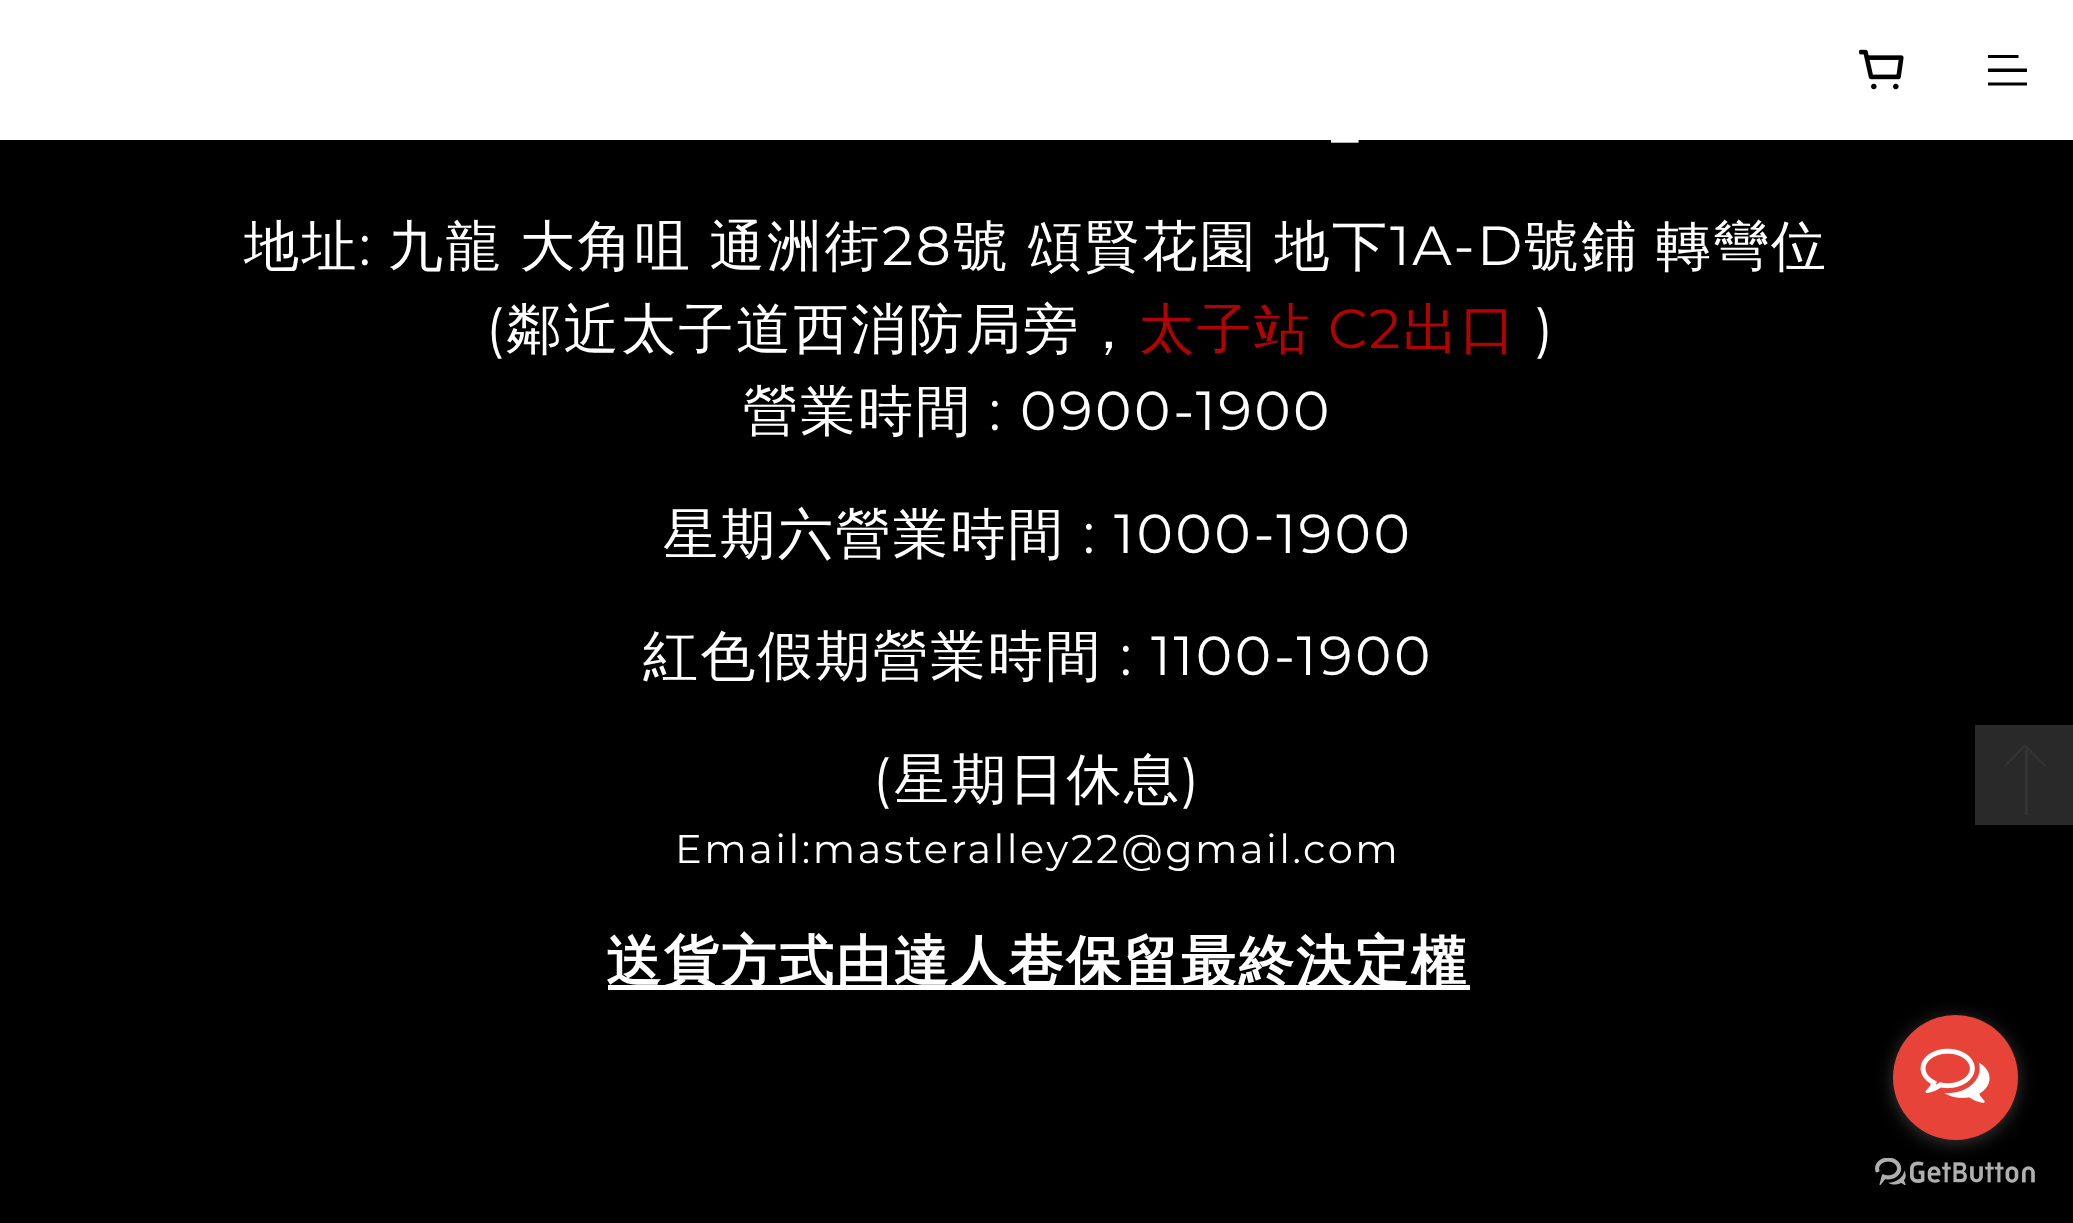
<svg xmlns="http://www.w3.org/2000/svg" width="2073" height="1223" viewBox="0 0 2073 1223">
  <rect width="100%" height="100%" fill="#000"/>
  <path d="M0 5h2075v140H0z" fill="#0000000f" filter="blur(7.5px)"/>
  <path d="M0 0h2073v140H0z" fill="#fff"/>
  <image x="1859" y="49" width="45" height="41" href="img/1.png"/>
  <path d="M2027 72V68.5H1988V72ZM2018.5 58V55H1988V58ZM2027 85.5V82.5H1988V85.5Z" fill="#000"/>
  <path d="M608 985h862v5H608z" fill="#fff"/>
  <path d="M1975 725h98v100H1975z" fill="#292929"/>
  <path d="M2025 744L2046 765L2044.5 767L2023 745.5Z" fill="#333"/>
  <path d="M2025 744L2027 745.5L2005.5 767L2004 765Z" fill="#333"/>
  <path d="M2025 750h3v65H2025z" fill="#333"/>
  <image x="1875" y="1158" width="160" height="27" href="img/3.png"/>
  <rect x="1893" y="1018" width="125" height="125" rx="62.5" fill="#88888866" filter="blur(9px)"/>
  <circle cx="1955.5" cy="1077.5" r="62.5" fill="#e74339"/>
  <image x="1920" y="1048" width="70" height="55" href="img/2.png"/>
  <text x="1331" y="140" font-family="Montserrat" font-size="55" letter-spacing="2.5" fill="#fff">_</text>
  <text x="244" y="265" font-family="WenQuanYi Zen Hei" font-size="55" font-weight="500" letter-spacing="2.5" fill="#fff">地址</text>
  <text x="359" y="265" font-family="Montserrat" font-size="55" letter-spacing="2.5" fill="#fff">:</text>
  <text x="388" y="265" word-spacing="-2" font-family="WenQuanYi Zen Hei" font-size="55" font-weight="500" letter-spacing="2.5" fill="#fff">九龍 大角咀 通洲街</text>
  <text x="882" y="265" font-family="Montserrat" font-size="55" letter-spacing="2.5" fill="#fff">28</text>
  <text x="953" y="265" word-spacing="-2" font-family="WenQuanYi Zen Hei" font-size="55" font-weight="500" letter-spacing="2.5" fill="#fff">號 頌賢花園 地下</text>
  <text x="1390" y="265" font-family="Montserrat" font-size="55" letter-spacing="2.5" fill="#fff">1A-D</text>
  <text x="1524" y="265" word-spacing="-2" font-family="WenQuanYi Zen Hei" font-size="55" font-weight="500" letter-spacing="2.5" fill="#fff">號鋪 轉彎位</text>
  <text x="486" y="348" font-family="Montserrat" font-size="55" letter-spacing="2.5" fill="#fff">(</text>
  <text x="506" y="348" font-family="WenQuanYi Zen Hei" font-size="55" font-weight="500" letter-spacing="2.5" fill="#fff">鄰近太子道西消防局旁，</text>
  <text x="1139" y="348" font-family="WenQuanYi Zen Hei" font-size="55" font-weight="500" letter-spacing="2.5" fill="#b10303">太子站</text>
  <text x="1328" y="348" font-family="Montserrat" font-size="55" letter-spacing="2.5" fill="#b10303">C2</text>
  <text x="1403" y="348" font-family="WenQuanYi Zen Hei" font-size="55" font-weight="500" letter-spacing="2.5" fill="#b10303">出口</text>
  <text x="1535" y="348" font-family="Montserrat" font-size="55" letter-spacing="2.5" fill="#fff">)</text>
  <text x="743" y="430" font-family="WenQuanYi Zen Hei" font-size="55" font-weight="500" letter-spacing="2.5" fill="#fff">營業時間</text>
  <text x="989" y="430" font-family="Montserrat" font-size="55" letter-spacing="2.5" fill="#fff">: 0900-1900</text>
  <text x="663" y="553" font-family="WenQuanYi Zen Hei" font-size="55" font-weight="500" letter-spacing="2.5" fill="#fff">星期六營業時間</text>
  <text x="1083" y="553" font-family="Montserrat" font-size="55" letter-spacing="2.5" fill="#fff">: 1000-1900</text>
  <text x="643" y="675" font-family="WenQuanYi Zen Hei" font-size="55" font-weight="500" letter-spacing="2.5" fill="#fff">紅色假期營業時間</text>
  <g font-family="Montserrat" font-size="55" letter-spacing="2.5" fill="#fff">
    <text x="1120" y="675">: 1100-1900</text>
    <text x="873" y="798">(</text>
  </g>
  <text x="894" y="798" font-family="WenQuanYi Zen Hei" font-size="55" font-weight="500" letter-spacing="2.5" fill="#fff">星期日休息</text>
  <text x="1181" y="798" font-family="Montserrat" font-size="55" letter-spacing="2.5" fill="#fff">)</text>
  <text x="675" y="863" font-family="Montserrat" font-size="40" letter-spacing="2.5" fill="#fff">Email:masteralley22@gmail.com</text>
  <text x="606" y="980" font-family="WenQuanYi Zen Hei" font-size="55" font-weight="bold" letter-spacing="2.5" fill="#fff">送貨方式由達人巷保留最終決定權</text>
</svg>
